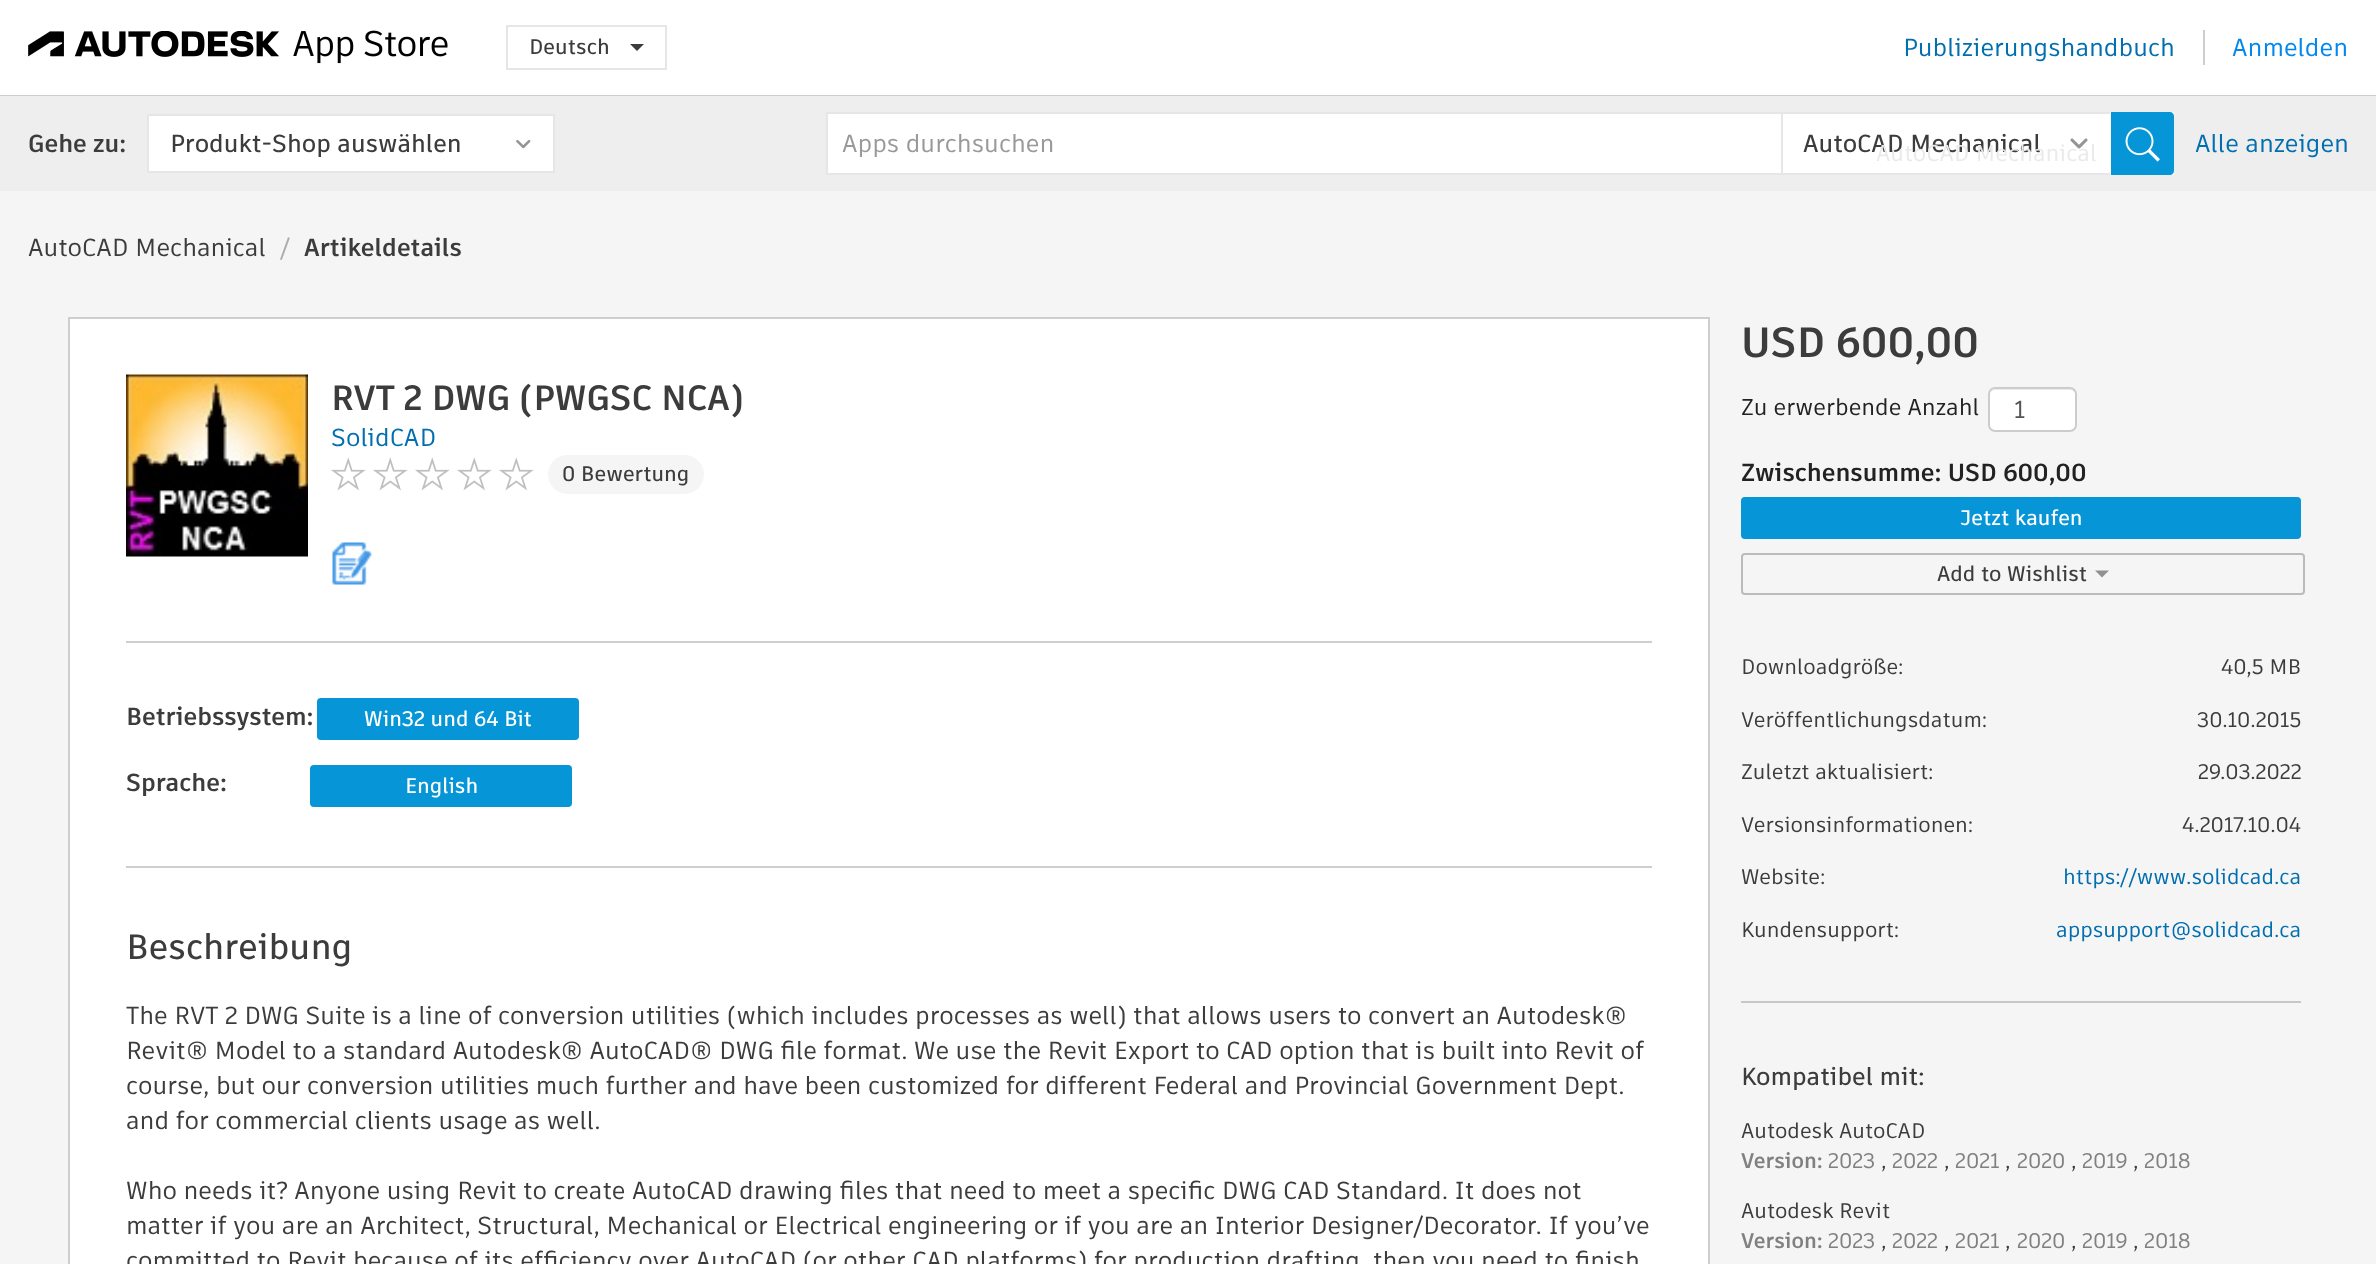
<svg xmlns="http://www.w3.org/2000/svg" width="2376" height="1264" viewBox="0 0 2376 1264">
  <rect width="100%" height="100%" fill="#f5f5f5"/>
  <path d="M0 0h2376v95H0z" fill="#fff"/>
  <path d="M0 95h2376v1H0z" fill="#cecece"/>
  <image x="28" y="30" width="420" height="34" href="img/1.png"/>
  <path d="M507 26h159v43H507z" fill="none" stroke="#e6e6e6" stroke-width="2"/>
  <path d="M630 44H644L637 51Z" fill="#3c3c3c"/>
  <path d="M2203 30h2v35H2203z" fill="#cecece"/>
  <path d="M0 96h2376v95H0z" fill="#eee"/>
  <path d="M148 115h406v57H148z" fill="#fff" stroke="#e6e6e6" stroke-width="2"/>
  <image x="516" y="139" width="15" height="10" href="img/2.png"/>
  <path d="M1783 112h391v63H1783z" fill="#fff"/>
  <path d="M1780 112H2110V114H1782Z" fill="#e6e6e6"/>
  <path d="M2110 175H1780L1782 173H2110Z" fill="#e6e6e6"/>
  <path d="M827 113h955v61H827z" fill="#fff" stroke="#e6e6e6" stroke-width="2"/>
  <image x="2070" y="138" width="18" height="11" href="img/3.png"/>
  <path d="M2111 112H2170C2172 112 2174 114 2174 116V171C2174 173 2172 175 2170 175H2111Z" fill="#0696d7"/>
  <image x="2125" y="127" width="35" height="35" href="img/4.png"/>
  <path d="M69 318h1640v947H69z" fill="#fff" stroke="#cecece" stroke-width="2"/>
  <path d="M126 641h1526v2H126z" fill="#cecece"/>
  <image x="126" y="374" width="182" height="183" href="img/5.png"/>
  <image x="331" y="457" width="35" height="34" href="img/6.png"/>
  <image x="373" y="457" width="35" height="34" href="img/6.png"/>
  <image x="415" y="457" width="35" height="34" href="img/6.png"/>
  <image x="457" y="457" width="35" height="34" href="img/6.png"/>
  <image x="499" y="457" width="35" height="34" href="img/6.png"/>
  <rect x="548" y="455" width="156" height="39" rx="19.5" fill="#f5f5f5"/>
  <image x="332" y="542" width="40" height="43" href="img/7.png"/>
  <path d="M126 866h1526v2H126z" fill="#cecece"/>
  <rect x="317" y="698" width="262" height="42" rx="4" fill="#0696d7"/>
  <rect x="310" y="765" width="262" height="42" rx="4" fill="#0696d7"/>
  <rect x="1988" y="387" width="89" height="45" rx="7" fill="#fff"/>
  <path d="M1995 390H2070C2073 390 2076 393 2076 396C2076 386 2067 389 2058 389H2008C1999 389 1990 386 1990 396C1990 393 1992 390 1995 390Z" fill="#ececec"/>
  <rect x="1989" y="388" width="87" height="43" rx="6" fill="none" stroke="#ccc" stroke-width="2"/>
  <rect x="1741" y="497" width="560" height="42" rx="4" fill="#0696d7"/>
  <rect x="1742" y="554" width="562" height="40" rx="3" fill="none" stroke="#bbb" stroke-width="2"/>
  <path d="M2095 570.5H2109L2102 577.5Z" fill="#919191"/>
  <path d="M1741 1001h560v2H1741z" fill="#c7c7c7"/>
  <text x="529" y="54" font-family="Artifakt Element" font-size="21" font-weight="600" fill="#3c3c3c">Deutsch</text>
  <text x="1903" y="56" font-family="Artifakt Element" font-size="24.5" font-weight="500" fill="#006eaf">Publizierungshandbuch</text>
  <text x="2232" y="56" font-family="Artifakt Element" font-size="24.5" font-weight="500" fill="#08e">Anmelden</text>
  <text x="28" y="152" font-family="Artifakt Element" font-size="24.5" font-weight="bold" fill="#3c3c3c">Gehe zu:</text>
  <text x="170" y="152" font-family="Artifakt Element" font-size="24.5" font-weight="600" fill="#3c3c3c">Produkt-Shop auswählen</text>
  <text x="842" y="152" font-family="Artifakt Element" font-size="24.5" font-weight="500" fill="#999">Apps durchsuchen</text>
  <text x="1803" y="152" font-family="Artifakt Element" font-size="24.5" font-weight="600" fill="#3c3c3c">AutoCAD Mechanical</text>
  <text x="1876" y="161" font-family="Artifakt Element" font-size="22.75" font-weight="500" fill="#eaeaea">AutoCAD Mechanical</text>
  <text x="2195" y="152" font-family="Artifakt Element" font-size="24.5" font-weight="500" fill="#006eaf">Alle anzeigen</text>
  <text x="28" y="256" font-family="Artifakt Element" font-size="24.5" font-weight="500" fill="#3c3c3c">AutoCAD Mechanical</text>
  <text x="280" y="256" font-family="Artifakt Element" font-size="24.5" font-weight="500" fill="#ababab">/</text>
  <text x="304" y="256" font-family="Artifakt Element" font-size="24.5" font-weight="bold" fill="#3c3c3c">Artikeldetails</text>
  <text x="331" y="410" font-family="Artifakt Element" font-size="35" font-weight="bold" fill="#3c3c3c">RVT 2 DWG (PWGSC NCA)</text>
  <text x="331" y="446" font-family="Artifakt Element" font-size="24.5" font-weight="500" fill="#006eaf">SolidCAD</text>
  <text x="562" y="481" font-family="Artifakt Element" font-size="21" font-weight="600" fill="#3c3c3c">0 Bewertung</text>
  <text x="126" y="725" font-family="Artifakt Element" font-size="24.5" font-weight="bold" fill="#3c3c3c">Betriebssystem:</text>
  <text x="364" y="726" font-family="Artifakt Element" font-size="21" font-weight="600" fill="#fff">Win32 und 64 Bit</text>
  <text x="126" y="791" font-family="Artifakt Element" font-size="24.5" font-weight="bold" fill="#3c3c3c">Sprache:</text>
  <text x="405" y="793" font-family="Artifakt Element" font-size="21" font-weight="600" fill="#fff">English</text>
  <text x="126" y="959" font-family="Artifakt Element" font-size="35" font-weight="600" fill="#3c3c3c">Beschreibung</text>
  <g font-family="Artifakt Element" font-size="24.5" font-weight="500" fill="#3c3c3c">
    <text x="126" y="1024">The RVT 2 DWG Suite is a line of conversion utilities (which includes processes as well) that allows users to convert an Autodesk®</text>
    <text x="126" y="1059">Revit® Model to a standard Autodesk® AutoCAD® DWG file format. We use the Revit Export to CAD option that is built into Revit of</text>
    <text x="126" y="1094">course, but our conversion utilities much further and have been customized for different Federal and Provincial Government Dept.</text>
    <text x="126" y="1129">and for commercial clients usage as well.</text>
    <text x="126" y="1199">Who needs it? Anyone using Revit to create AutoCAD drawing files that need to meet a specific DWG CAD Standard. It does not</text>
    <text x="126" y="1234">matter if you are an Architect, Structural, Mechanical or Electrical engineering or if you are an Interior Designer/Decorator. If you’ve</text>
    <text x="126" y="1269">committed to Revit because of its efficiency over AutoCAD (or other CAD platforms) for production drafting, then you need to finish</text>
  </g>
  <text x="1741" y="357" font-family="Artifakt Element" font-size="42" font-weight="bold" fill="#3c3c3c">USD 600,00</text>
  <text x="1741" y="415" font-family="Artifakt Element" font-size="22.75" font-weight="500" fill="#222">Zu erwerbende Anzahl</text>
  <text x="2014" y="418" font-family="Artifakt Element" font-size="24.5" font-weight="500" fill="#555">1</text>
  <text x="1741" y="481" font-family="Artifakt Element" font-size="24.5" font-weight="bold" fill="#222">Zwischensumme: USD 600,00</text>
  <text x="1960" y="525" font-family="Artifakt Element" font-size="21" font-weight="600" fill="#fff">Jetzt kaufen</text>
  <text x="1937" y="581" font-family="Artifakt Element" font-size="21" font-weight="600" fill="#3c3c3c">Add to Wishlist</text>
  <g font-family="Artifakt Element" font-size="21" font-weight="500" fill="#3c3c3c">
    <text x="1741" y="674">Downloadgröße:</text>
    <text x="2221" y="674">40,5 MB</text>
    <text x="1741" y="727">Veröffentlichungsdatum:</text>
    <text x="2197" y="727">30.10.2015</text>
    <text x="1741" y="779">Zuletzt aktualisiert:</text>
    <text x="2198" y="779">29.03.2022</text>
    <text x="1741" y="832">Versionsinformationen:</text>
    <text x="2182" y="832">4.2017.10.04</text>
    <text x="1741" y="884">Website:</text>
  </g>
  <text x="2063" y="884" font-family="Artifakt Element" font-size="21" font-weight="500" fill="#006eaf">https://www.solidcad.ca</text>
  <text x="1741" y="937" font-family="Artifakt Element" font-size="21" font-weight="500" fill="#3c3c3c">Kundensupport:</text>
  <text x="2056" y="937" font-family="Artifakt Element" font-size="21" font-weight="500" fill="#006eaf">appsupport@solidcad.ca</text>
  <text x="1741" y="1085" font-family="Artifakt Element" font-size="24.5" font-weight="600" fill="#3c3c3c">Kompatibel mit:</text>
  <text x="1741" y="1138" font-family="Artifakt Element" font-size="21" font-weight="500" fill="#3c3c3c">Autodesk AutoCAD</text>
  <text x="1741" y="1168" font-family="Artifakt Element" font-size="21" font-weight="bold" fill="#808080">Version:</text>
  <text x="1828" y="1168" font-family="Artifakt Element" font-size="21" font-weight="500" fill="#808080">2023</text>
  <text x="1881" y="1168" font-family="Artifakt Element" font-size="21" font-weight="500" fill="#3c3c3c">,</text>
  <text x="1892" y="1168" font-family="Artifakt Element" font-size="21" font-weight="500" fill="#808080">2022</text>
  <text x="1944" y="1168" font-family="Artifakt Element" font-size="21" font-weight="500" fill="#3c3c3c">,</text>
  <text x="1955" y="1168" font-family="Artifakt Element" font-size="21" font-weight="500" fill="#808080">2021</text>
  <text x="2005" y="1168" font-family="Artifakt Element" font-size="21" font-weight="500" fill="#3c3c3c">,</text>
  <text x="2017" y="1168" font-family="Artifakt Element" font-size="21" font-weight="500" fill="#808080">2020</text>
  <text x="2071" y="1168" font-family="Artifakt Element" font-size="21" font-weight="500" fill="#3c3c3c">,</text>
  <text x="2082" y="1168" font-family="Artifakt Element" font-size="21" font-weight="500" fill="#808080">2019</text>
  <text x="2133" y="1168" font-family="Artifakt Element" font-size="21" font-weight="500" fill="#3c3c3c">,</text>
  <text x="2144" y="1168" font-family="Artifakt Element" font-size="21" font-weight="500" fill="#808080">2018</text>
  <text x="1741" y="1218" font-family="Artifakt Element" font-size="21" font-weight="500" fill="#3c3c3c">Autodesk Revit</text>
  <text x="1741" y="1248" font-family="Artifakt Element" font-size="21" font-weight="bold" fill="#808080">Version:</text>
  <text x="1828" y="1248" font-family="Artifakt Element" font-size="21" font-weight="500" fill="#808080">2023</text>
  <text x="1881" y="1248" font-family="Artifakt Element" font-size="21" font-weight="500" fill="#3c3c3c">,</text>
  <text x="1892" y="1248" font-family="Artifakt Element" font-size="21" font-weight="500" fill="#808080">2022</text>
  <text x="1944" y="1248" font-family="Artifakt Element" font-size="21" font-weight="500" fill="#3c3c3c">,</text>
  <text x="1955" y="1248" font-family="Artifakt Element" font-size="21" font-weight="500" fill="#808080">2021</text>
  <text x="2005" y="1248" font-family="Artifakt Element" font-size="21" font-weight="500" fill="#3c3c3c">,</text>
  <text x="2017" y="1248" font-family="Artifakt Element" font-size="21" font-weight="500" fill="#808080">2020</text>
  <text x="2071" y="1248" font-family="Artifakt Element" font-size="21" font-weight="500" fill="#3c3c3c">,</text>
  <text x="2082" y="1248" font-family="Artifakt Element" font-size="21" font-weight="500" fill="#808080">2019</text>
  <text x="2133" y="1248" font-family="Artifakt Element" font-size="21" font-weight="500" fill="#3c3c3c">,</text>
  <text x="2144" y="1248" font-family="Artifakt Element" font-size="21" font-weight="500" fill="#808080">2018</text>
</svg>
